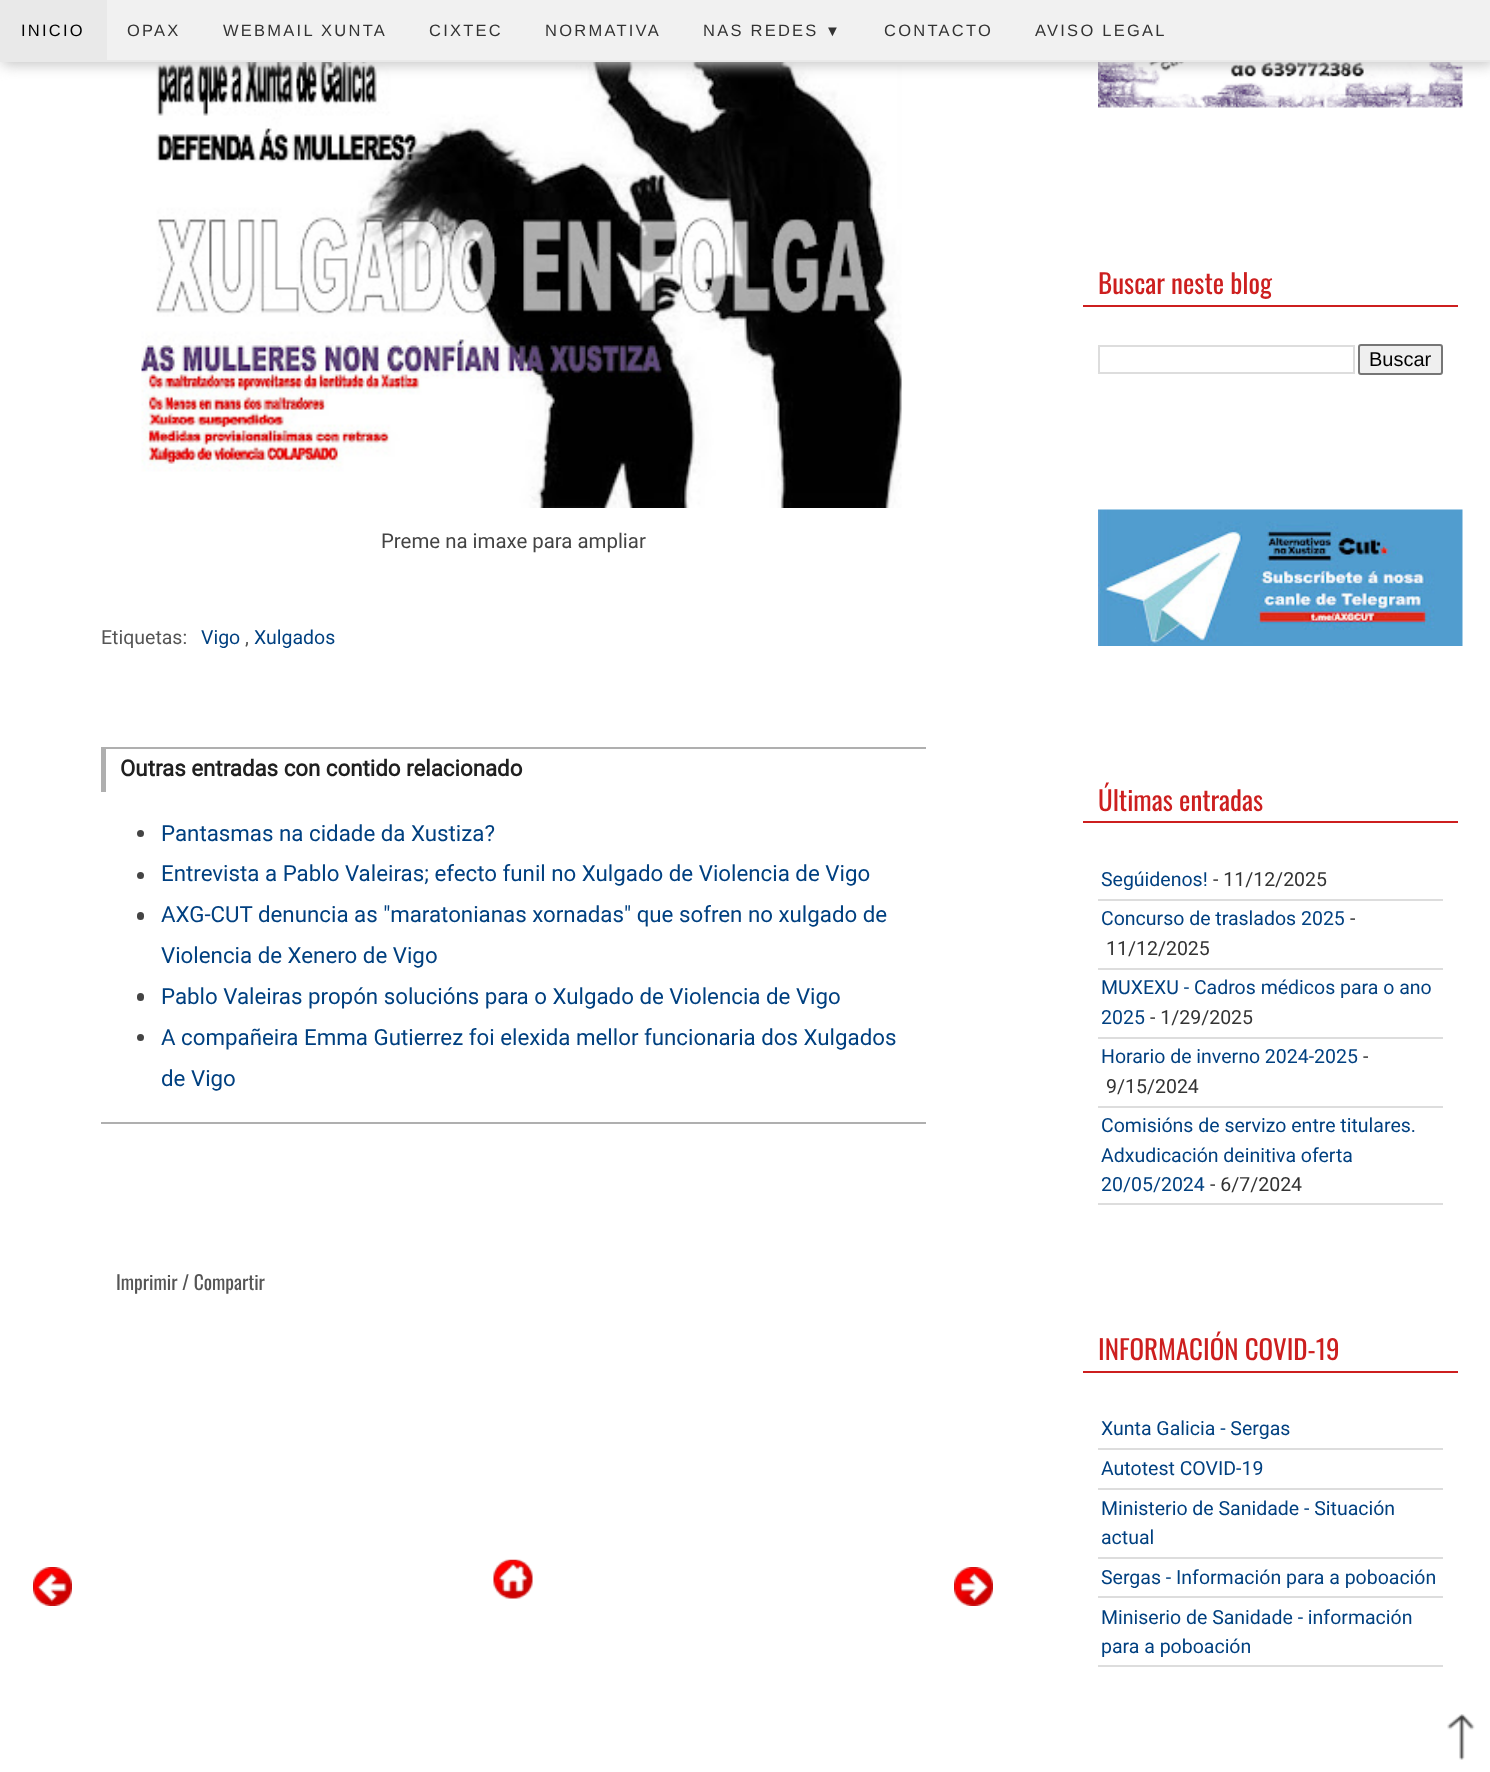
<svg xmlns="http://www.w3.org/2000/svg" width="1490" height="1772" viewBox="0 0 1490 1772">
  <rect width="100%" height="100%" fill="#fff"/>
  <image x="141" y="62" width="761" height="446" href="img/1.png"/>
  <image x="1098" y="62" width="365" height="46" href="img/5.png"/>
  <path d="M2 3h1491v62H2z" fill="#c6c6c6" filter="blur(7px)"/>
  <path d="M107 0h1383v60H107z" fill="#f1f1f1"/>
  <path d="M0 60h1490v2H0z" fill="#e9e9e9"/>
  <path d="M0 0h107v60H0z" fill="#e9e9e9"/>
  <path d="M101 1122h825v2H101z" fill="#afafaf"/>
  <path d="M101 747h825v2H101z" fill="#afafaf"/>
  <path d="M101 747h5v45H101z" fill="#afafaf"/>
  <circle cx="140.5" cy="833.5" r="3.5" fill="#444"/>
  <circle cx="140.5" cy="875.5" r="3.5" fill="#444"/>
  <rect x="137" y="912" width="7" height="8" rx="3.5" fill="#444"/>
  <rect x="137" y="993" width="7" height="8" rx="3.5" fill="#444"/>
  <circle cx="140.5" cy="1037.5" r="3.5" fill="#444"/>
  <image x="33" y="1567" width="39" height="39" href="img/2.png"/>
  <image x="493" y="1559" width="40" height="40" href="img/3.png"/>
  <image x="954" y="1567" width="39" height="39" href="img/4.png"/>
  <path d="M1083 305h375v2H1083z" fill="#cd1f1f"/>
  <path d="M1099 346h255v27H1099z" fill="none" stroke="#ddd" stroke-width="2"/>
  <rect x="1359" y="345" width="83" height="29" rx="2" fill="#efefef" stroke="#767676" stroke-width="2"/>
  <image x="1098" y="509" width="365" height="137" href="img/6.png"/>
  <path d="M1083 821h375v2H1083z" fill="#cd1f1f"/>
  <path d="M1098 899h345v2H1098z" fill="#ddd"/>
  <path d="M1098 968h345v2H1098z" fill="#ddd"/>
  <path d="M1098 1037h345v2H1098z" fill="#ddd"/>
  <path d="M1098 1106h345v2H1098z" fill="#ddd"/>
  <path d="M1098 1203h345v2H1098z" fill="#ddd"/>
  <path d="M1083 1371h375v2H1083z" fill="#cd1f1f"/>
  <path d="M1098 1448h345v2H1098z" fill="#ddd"/>
  <path d="M1098 1488h345v2H1098z" fill="#ddd"/>
  <path d="M1098 1557h345v2H1098z" fill="#ddd"/>
  <path d="M1098 1596h345v2H1098z" fill="#ddd"/>
  <path d="M1098 1665h345v2H1098z" fill="#ddd"/>
  <image x="1447" y="1714" width="28" height="46" href="img/7.png"/>
  <text x="21" y="36" font-family="Liberation Sans" font-size="16.5" letter-spacing="2.25" fill="#000">INICIO</text>
  <g font-family="Liberation Sans" font-size="16.5" letter-spacing="2.25" fill="#333">
    <text x="127" y="36">OPAX</text>
    <text x="223" y="36">WEBMAIL XUNTA</text>
    <text x="429" y="36">CIXTEC</text>
    <text x="545" y="36">NORMATIVA</text>
    <text x="703" y="36">NAS REDES</text>
  </g>
  <text x="825" y="36" font-family="Liberation Sans" font-size="15" letter-spacing="2.25" fill="#333">▼</text>
  <g font-family="Liberation Sans" font-size="16.5" letter-spacing="2.25" fill="#333">
    <text x="884" y="36">CONTACTO</text>
    <text x="1035" y="36">AVISO LEGAL</text>
  </g>
  <text x="381" y="548" font-family="Roboto" font-size="20.4" fill="#444">Preme na imaxe para ampliar</text>
  <text x="101" y="644" font-family="Roboto" font-size="19.5" fill="#555">Etiquetas:</text>
  <text x="201" y="644" font-family="Roboto" font-size="19.5" fill="#004080">Vigo</text>
  <text x="245" y="644" font-family="Roboto" font-size="19.5" fill="#555">,</text>
  <text x="254" y="644" font-family="Roboto" font-size="19.5" fill="#004080">Xulgados</text>
  <text x="120" y="776" font-family="Roboto" font-size="22.3" font-weight="bold" fill="#202020">Outras entradas con contido relacionado</text>
  <g font-family="Roboto" font-size="22.3" fill="#004080">
    <text x="161" y="841">Pantasmas na cidade da Xustiza?</text>
    <text x="161" y="881">Entrevista a Pablo Valeiras; efecto funil no Xulgado de Violencia de Vigo</text>
    <text x="161" y="922">AXG-CUT denuncia as "maratonianas xornadas" que sofren no xulgado de</text>
    <text x="161" y="963">Violencia de Xenero de Vigo</text>
    <text x="161" y="1004">Pablo Valeiras propón solucións para o Xulgado de Violencia de Vigo</text>
    <text x="161" y="1045">A compañeira Emma Gutierrez foi elexida mellor funcionaria dos Xulgados</text>
    <text x="161" y="1086">de Vigo</text>
  </g>
  <text x="116" y="1290" font-family="Oswald" font-size="19.5" fill="#555">Imprimir / Compartir</text>
  <text x="1098" y="294" font-family="Oswald" font-size="27" fill="#cd1f1f">Buscar neste blog</text>
  <text x="1369" y="366" font-family="Liberation Sans" font-size="20" fill="#000">Buscar</text>
  <text x="1098" y="811" font-family="Oswald" font-size="27" fill="#cd1f1f">Últimas entradas</text>
  <text x="1101" y="886" font-family="Roboto" font-size="19.5" fill="#004080">Segúidenos!</text>
  <text x="1213" y="886" font-family="Roboto" font-size="19.5" fill="#333">- 11/12/2025</text>
  <text x="1101" y="925" font-family="Roboto" font-size="19.5" fill="#004080">Concurso de traslados 2025</text>
  <g font-family="Roboto" font-size="19.5" fill="#333">
    <text x="1350" y="925">-</text>
    <text x="1106" y="955">11/12/2025</text>
  </g>
  <g font-family="Roboto" font-size="19.5" fill="#004080">
    <text x="1101" y="994">MUXEXU - Cadros médicos para o ano</text>
    <text x="1101" y="1024">2025</text>
  </g>
  <text x="1150" y="1024" font-family="Roboto" font-size="19.5" fill="#333">- 1/29/2025</text>
  <text x="1101" y="1063" font-family="Roboto" font-size="19.5" fill="#004080">Horario de inverno 2024-2025</text>
  <g font-family="Roboto" font-size="19.5" fill="#333">
    <text x="1363" y="1063">-</text>
    <text x="1106" y="1093">9/15/2024</text>
  </g>
  <g font-family="Roboto" font-size="19.5" fill="#004080">
    <text x="1101" y="1132">Comisións de servizo entre titulares.</text>
    <text x="1101" y="1162">Adxudicación deinitiva oferta</text>
    <text x="1101" y="1191">20/05/2024</text>
  </g>
  <text x="1210" y="1191" font-family="Roboto" font-size="19.5" fill="#333">- 6/7/2024</text>
  <text x="1098" y="1360" font-family="Oswald" font-size="27" fill="#cd1f1f">INFORMACIÓN COVID-19</text>
  <g font-family="Roboto" font-size="19.5" fill="#004080">
    <text x="1101" y="1435">Xunta Galicia - Sergas</text>
    <text x="1101" y="1475">Autotest COVID-19</text>
    <text x="1101" y="1515">Ministerio de Sanidade - Situación</text>
    <text x="1101" y="1544">actual</text>
    <text x="1101" y="1584">Sergas - Información para a poboación</text>
    <text x="1101" y="1624">Miniserio de Sanidade - información</text>
    <text x="1101" y="1653">para a poboación</text>
  </g>
</svg>
